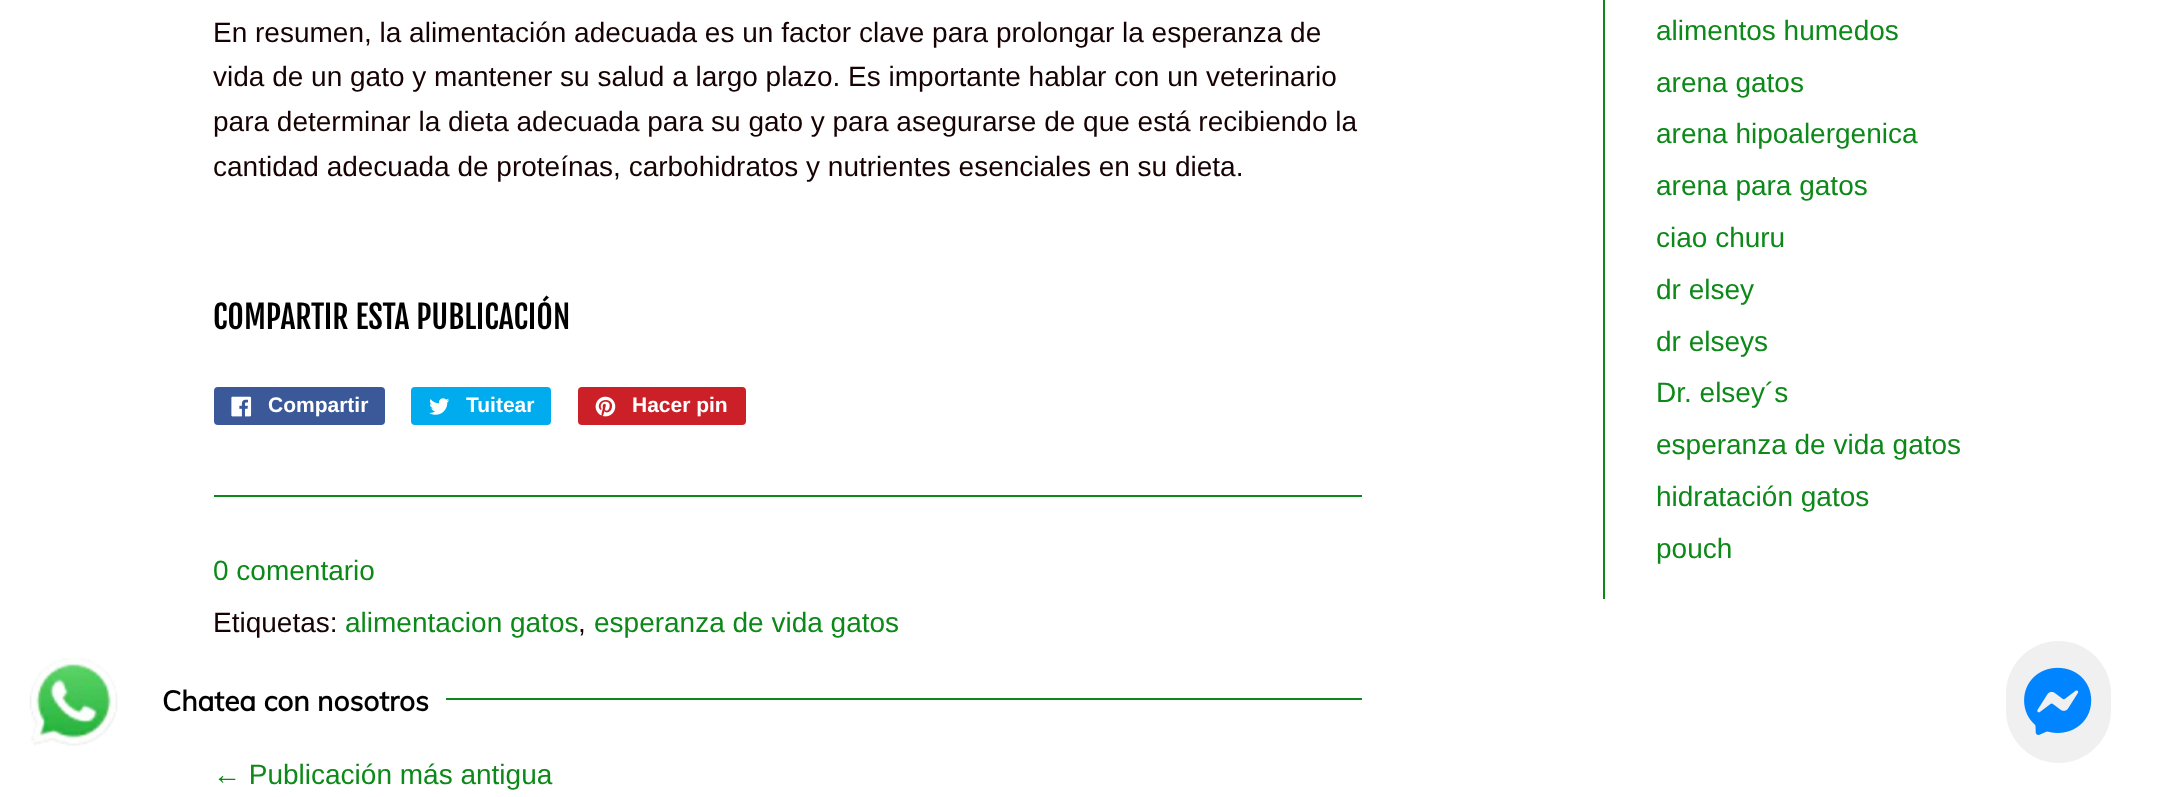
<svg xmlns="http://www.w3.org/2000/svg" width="2174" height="797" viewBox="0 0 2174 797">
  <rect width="100%" height="100%" fill="#fff"/>
  <rect x="214" y="387" width="171" height="38" rx="4" fill="#3b5998"/>
  <image x="231" y="396" width="21" height="21" href="img/1.png"/>
  <rect x="411" y="387" width="140" height="38" rx="4" fill="#00aced"/>
  <image x="429" y="398" width="21" height="17" href="img/2.png"/>
  <rect x="578" y="387" width="168" height="38" rx="4" fill="#cb2027"/>
  <image x="595" y="396" width="21" height="21" href="img/3.png"/>
  <path d="M214 495h1148v2H214z" fill="#0d8919"/>
  <path d="M446 698h916v2H446z" fill="#0d8919"/>
  <path d="M1603 0h2v599H1603z" fill="#0d8919"/>
  <image x="29" y="658" width="89" height="88" href="img/4.png"/>
  <rect x="2006" y="641" width="105" height="122" rx="52.5" fill="#f0f0f0"/>
  <image x="2024" y="667" width="68" height="68" href="img/5.png"/>
  <g font-family="Liberation Sans" font-size="28" fill="#160202">
    <text x="213" y="42">En resumen, la alimentación adecuada es un factor clave para prolongar la esperanza de</text>
    <text x="213" y="86">vida de un gato y mantener su salud a largo plazo. Es importante hablar con un veterinario</text>
    <text x="213" y="131">para determinar la dieta adecuada para su gato y para asegurarse de que está recibiendo la</text>
    <text x="213" y="176">cantidad adecuada de proteínas, carbohidratos y nutrientes esenciales en su dieta.</text>
  </g>
  <text x="213" y="329" font-family="Fjalla One" font-size="31.75" fill="#000">COMPARTIR ESTA PUBLICACIÓN</text>
  <g font-family="Liberation Sans" font-size="21" font-weight="bold" fill="#fff">
    <text x="268" y="412">Compartir</text>
    <text x="466" y="412">Tuitear</text>
    <text x="632" y="412">Hacer pin</text>
  </g>
  <text x="213" y="580" font-family="Liberation Sans" font-size="28" fill="#0d8919">0 comentario</text>
  <text x="213" y="632" font-family="Liberation Sans" font-size="28" fill="#160202">Etiquetas:</text>
  <text x="345" y="632" font-family="Liberation Sans" font-size="28" fill="#0d8919">alimentacion gatos</text>
  <text x="578" y="632" font-family="Liberation Sans" font-size="28" fill="#160202">,</text>
  <g font-family="Liberation Sans" font-size="28" fill="#0d8919">
    <text x="594" y="632">esperanza de vida gatos</text>
    <text x="213" y="784">← Publicación más antigua</text>
    <text x="1656" y="40">alimentos humedos</text>
    <text x="1656" y="92">arena gatos</text>
    <text x="1656" y="143">arena hipoalergenica</text>
    <text x="1656" y="195">arena para gatos</text>
    <text x="1656" y="247">ciao churu</text>
    <text x="1656" y="299">dr elsey</text>
    <text x="1656" y="351">dr elseys</text>
    <text x="1656" y="402">Dr. elsey´s</text>
    <text x="1656" y="454">esperanza de vida gatos</text>
    <text x="1656" y="506">hidratación gatos</text>
    <text x="1656" y="558">pouch</text>
  </g>
  <text x="162" y="711" font-family="Muli" font-size="28" font-weight="bold" fill="#000">Chatea con nosotros</text>
</svg>
